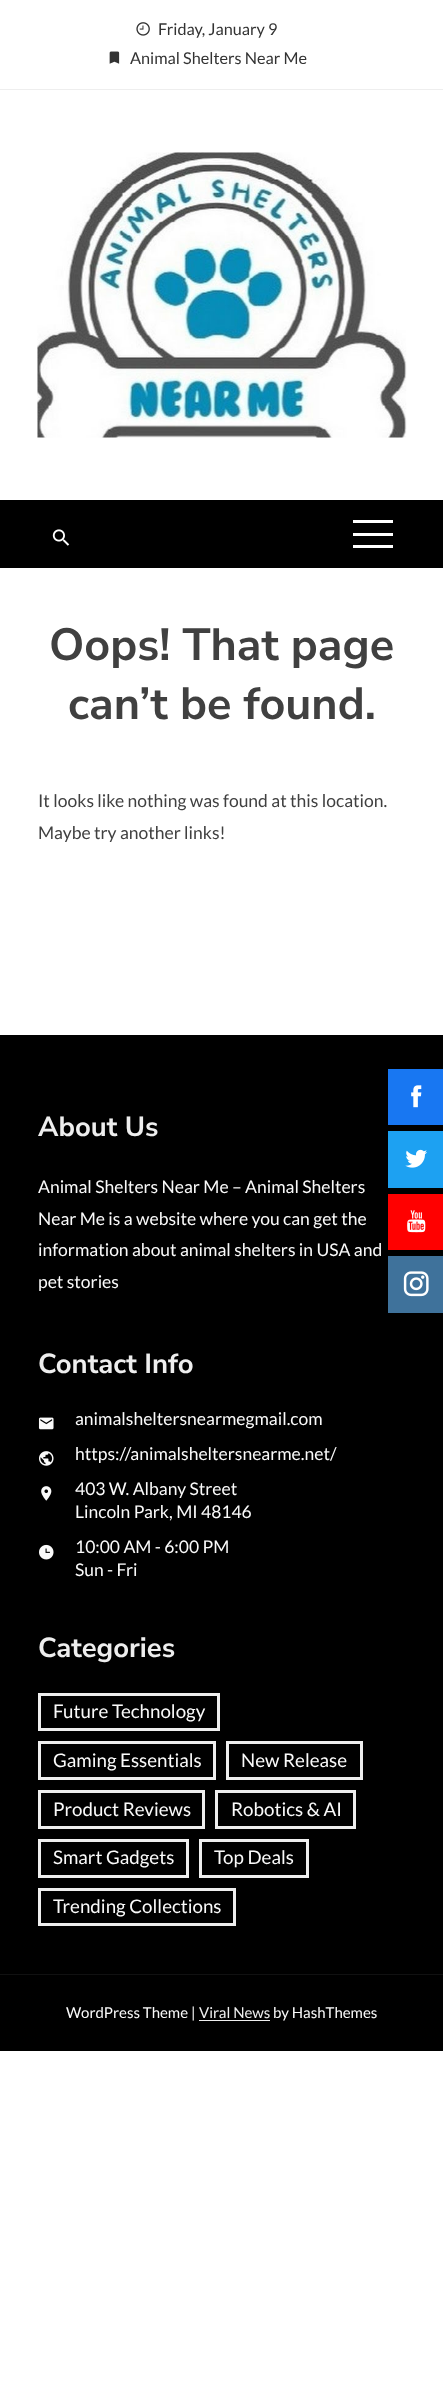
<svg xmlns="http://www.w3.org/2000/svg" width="443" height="2386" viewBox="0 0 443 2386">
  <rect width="100%" height="100%" fill="#fff"/>
  <path d="M0 89h443v1H0z" fill="#eee"/>
  <image x="136" y="22" width="14" height="14" href="img/1.png"/>
  <image x="109" y="51" width="11" height="13" href="img/2.png"/>
  <image x="37" y="152" width="370" height="286" href="img/3.png"/>
  <path d="M0 500h443v68H0z" fill="#000"/>
  <image x="52" y="529" width="18" height="17" href="img/4.png"/>
  <path d="M353 520h40v3H353z" fill="#fff"/>
  <path d="M353 545h40v3H353z" fill="#fff"/>
  <path d="M353 533h40v3H353z" fill="#fff"/>
  <path d="M0 1035h443v1016H0z" fill="#000"/>
  <image x="38" y="1417" width="16" height="13" href="img/5.png"/>
  <image x="39" y="1451" width="15" height="15" href="img/6.png"/>
  <image x="41" y="1486" width="11" height="15" href="img/7.png"/>
  <image x="39" y="1544" width="15" height="16" href="img/8.png"/>
  <path d="M39.5 1694.5h179v35H39.5z" fill="none" stroke="#eee" stroke-width="3"/>
  <path d="M39.5 1742.5h175v36H39.5z" fill="none" stroke="#eee" stroke-width="3"/>
  <path d="M227.5 1742.5h134v36H227.5z" fill="none" stroke="#eee" stroke-width="3"/>
  <path d="M39.5 1791.5h164v36H39.5z" fill="none" stroke="#eee" stroke-width="3"/>
  <path d="M216.5 1791.5h138v36H216.5z" fill="none" stroke="#eee" stroke-width="3"/>
  <path d="M39.5 1840.5h148v36H39.5z" fill="none" stroke="#eee" stroke-width="3"/>
  <path d="M200.5 1840.5h107v36H200.5z" fill="none" stroke="#eee" stroke-width="3"/>
  <path d="M39.5 1889.5h195v35H39.5z" fill="none" stroke="#eee" stroke-width="3"/>
  <path d="M0 1974h443v1H0z" fill="#111"/>
  <path d="M199 2020h71v1H199z" fill="#f0f0f0"/>
  <path d="M388 1069h55v56H388z" fill="#1877f2"/>
  <image x="411" y="1085" width="11" height="23" href="img/9.png"/>
  <path d="M388 1131h55v57H388z" fill="#1da1f2"/>
  <image x="405" y="1149" width="22" height="19" href="img/10.png"/>
  <path d="M388 1194h55v56H388z" fill="#f00"/>
  <image x="407" y="1210" width="19" height="23" href="img/11.png"/>
  <path d="M388 1256h55v57H388z" fill="#3f729b"/>
  <image x="403" y="1271" width="26" height="26" href="img/12.png"/>
  <g font-family="Lato" font-size="16.25" fill="#333">
    <text x="158" y="35">Friday, January 9</text>
    <text x="130" y="64">Animal Shelters Near Me</text>
  </g>
  <g font-family="Nunito Sans" font-size="45" font-weight="bold" fill="#404040">
    <text x="49" y="660">Oops! That page</text>
    <text x="68" y="719">can’t be found.</text>
  </g>
  <g font-family="Lato" font-size="17.5" fill="#404040">
    <text x="38" y="807">It looks like nothing was found at this location.</text>
    <text x="38" y="839">Maybe try another links!</text>
  </g>
  <text x="38" y="1136" font-family="Nunito Sans" font-size="27.5" font-weight="bold" fill="#eee">About Us</text>
  <g font-family="Lato" font-size="17.5" fill="#fafafa">
    <text x="38" y="1193">Animal Shelters Near Me – Animal Shelters</text>
    <text x="38" y="1225">Near Me is a website where you can get the</text>
    <text x="38" y="1256">information about animal shelters in USA and</text>
    <text x="38" y="1288">pet stories</text>
  </g>
  <text x="38" y="1373" font-family="Nunito Sans" font-size="27.5" font-weight="bold" fill="#eee">Contact Info</text>
  <g font-family="Lato" font-size="17.5" fill="#fafafa">
    <text x="75" y="1425">animalsheltersnearmegmail.com</text>
    <text x="75" y="1460">https://animalsheltersnearme.net/</text>
    <text x="75" y="1495">403 W. Albany Street</text>
    <text x="75" y="1518">Lincoln Park, MI 48146</text>
    <text x="75" y="1553">10:00 AM - 6:00 PM</text>
    <text x="75" y="1576">Sun - Fri</text>
  </g>
  <text x="38" y="1657" font-family="Nunito Sans" font-size="27.5" font-weight="bold" fill="#eee">Categories</text>
  <g font-family="Lato" font-size="18.75" fill="#fafafa">
    <text x="53" y="1718">Future Technology</text>
    <text x="53" y="1767">Gaming Essentials</text>
    <text x="241" y="1767">New Release</text>
    <text x="53" y="1816">Product Reviews</text>
    <text x="231" y="1816">Robotics &amp; AI</text>
    <text x="53" y="1864">Smart Gadgets</text>
    <text x="214" y="1864">Top Deals</text>
    <text x="53" y="1913">Trending Collections</text>
  </g>
  <text x="66" y="2018" font-family="Lato" font-size="15" fill="#fafafa">WordPress Theme |</text>
  <text x="199" y="2018" font-family="Lato" font-size="15" fill="#eee">Viral News</text>
  <text x="273" y="2018" font-family="Lato" font-size="15" fill="#fafafa">by HashThemes</text>
</svg>
